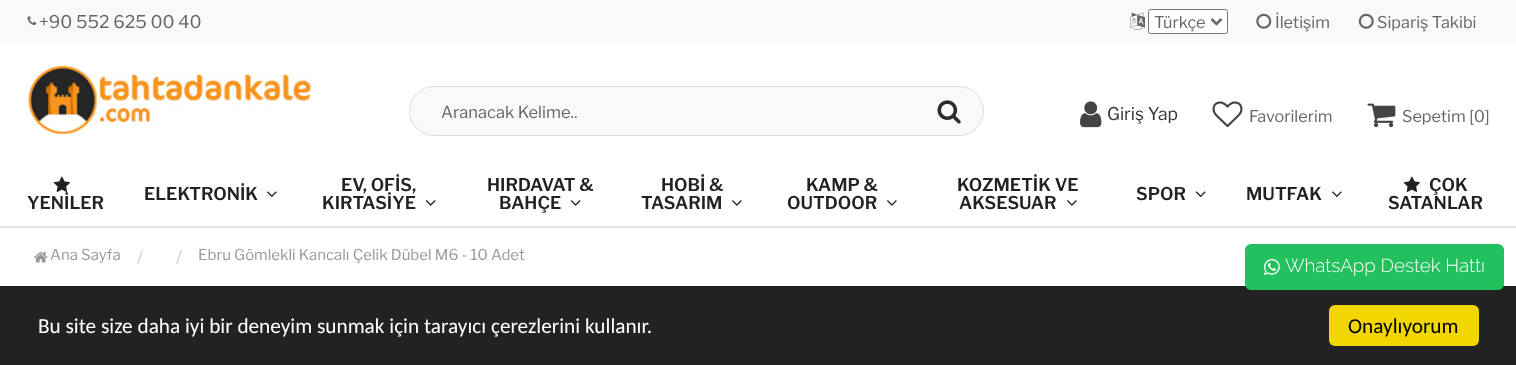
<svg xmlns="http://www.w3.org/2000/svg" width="1516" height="365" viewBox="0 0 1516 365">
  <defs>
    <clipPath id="clip1"><path d="M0 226h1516v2H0z"/></clipPath>
  </defs>
  <rect width="100%" height="100%" fill="#fff"/>
  <path d="M0 0h1516v43H0z" fill="#f9f9f9"/>
  <image x="27" y="16" width="10" height="9" href="img/1.png"/>
  <image x="1130" y="12" width="15" height="18" href="img/2.png"/>
  <rect x="1148.5" y="9.5" width="79" height="24" rx="2" fill="#fff" stroke="#767676"/>
  <path d="M1211.5 19L1216.5 24L1221.5 19" fill="none" stroke="#666" stroke-width="2.5"/>
  <image x="1256" y="13" width="16" height="16" href="img/3.png"/>
  <image x="1358" y="13" width="16" height="16" href="img/4.png"/>
  <image x="28" y="66" width="283" height="68" href="img/5.png"/>
  <rect x="409.5" y="86.5" width="574" height="49" rx="24.5" fill="#f9f9f9" stroke="#ddd"/>
  <image x="937" y="100" width="24" height="24" href="img/6.png"/>
  <image x="1080" y="101" width="22" height="27" href="img/7.png"/>
  <image x="1212" y="101" width="31" height="27" href="img/8.png"/>
  <image x="1367" y="103" width="29" height="25" href="img/9.png"/>
  <g clip-path="url(#clip1)">
    <path d="M0 163h1516v65H0z" fill="#0000001a" filter="blur(0.5px)"/>
  </g>
  <image x="53" y="176" width="17" height="16" href="img/10.png"/>
  <image x="267" y="191" width="10" height="6" href="img/11.png"/>
  <image x="425" y="200" width="11" height="6" href="img/12.png"/>
  <image x="570" y="200" width="11" height="6" href="img/12.png"/>
  <image x="732" y="200" width="10" height="6" href="img/13.png"/>
  <image x="887" y="200" width="10" height="6" href="img/13.png"/>
  <image x="1067" y="200" width="10" height="6" href="img/13.png"/>
  <image x="1195" y="191" width="11" height="6" href="img/14.png"/>
  <image x="1332" y="191" width="10" height="6" href="img/11.png"/>
  <image x="1403" y="176" width="17" height="16" href="img/10.png"/>
  <image x="34" y="251" width="14" height="12" href="img/15.png"/>
  <path d="M0 286h1516v79H0z" fill="#222"/>
  <rect x="1245" y="244" width="259" height="46" rx="6" fill="#22c15e"/>
  <image x="1263" y="259" width="17" height="17" href="img/16.png"/>
  <rect x="1329" y="305" width="150" height="41" rx="6" fill="#f1d600"/>
  <text x="39" y="28" font-family="Libre Franklin" font-size="17.5" fill="#666">+90 552 625 00 40</text>
  <g font-family="Libre Franklin" font-size="16.25" fill="#666">
    <text x="1154" y="28">Türkçe</text>
    <text x="1275" y="28">İletişim</text>
    <text x="1377" y="28">Sipariş Takibi</text>
  </g>
  <text x="441" y="118" font-family="Libre Franklin" font-size="16.5" fill="#666">Aranacak Kelime..</text>
  <text x="1107" y="120" font-family="Libre Franklin" font-size="17.5" fill="#333">Giriş Yap</text>
  <g font-family="Libre Franklin" font-size="16.25" fill="#666">
    <text x="1249" y="122">Favorilerim</text>
    <text x="1402" y="122">Sepetim [0]</text>
  </g>
  <g font-family="Libre Franklin" font-size="17.5" font-weight="600" fill="#222">
    <text x="27" y="209">YENİLER</text>
    <text x="144" y="200">ELEKTRONİK</text>
    <text x="341" y="191">EV, OFİS,</text>
    <text x="322" y="209">KIRTASİYE</text>
    <text x="487" y="191">HIRDAVAT &amp;</text>
    <text x="499" y="209">BAHÇE</text>
    <text x="661" y="191">HOBİ &amp;</text>
    <text x="641" y="209">TASARIM</text>
    <text x="806" y="191">KAMP &amp;</text>
    <text x="787" y="209">OUTDOOR</text>
    <text x="957" y="191">KOZMETİK VE</text>
    <text x="959" y="209">AKSESUAR</text>
    <text x="1136" y="200">SPOR</text>
    <text x="1246" y="200">MUTFAK</text>
    <text x="1429" y="191">ÇOK</text>
    <text x="1388" y="209">SATANLAR</text>
  </g>
  <text x="50" y="260" font-family="Libre Franklin" font-size="15" fill="#999">Ana Sayfa</text>
  <g font-family="Libre Franklin" font-size="17.5" fill="#ccc">
    <text x="137" y="263">/</text>
    <text x="176" y="263">/</text>
  </g>
  <text x="198" y="260" font-family="Libre Franklin" font-size="15" fill="#999">Ebru Gömlekli Kancalı Çelik Dübel M6 - 10 Adet</text>
  <text x="1285" y="272" font-family="Raleway" font-size="18.75" font-weight="300" fill="#fff">WhatsApp Destek Hattı</text>
  <text x="38" y="333" font-family="Carlito" font-size="21.25" fill="#fff">Bu site size daha iyi bir deneyim sunmak için tarayıcı çerezlerini kullanır.</text>
  <text x="1348" y="333" font-family="Carlito" font-size="21.25" fill="#000">Onaylıyorum</text>
</svg>
